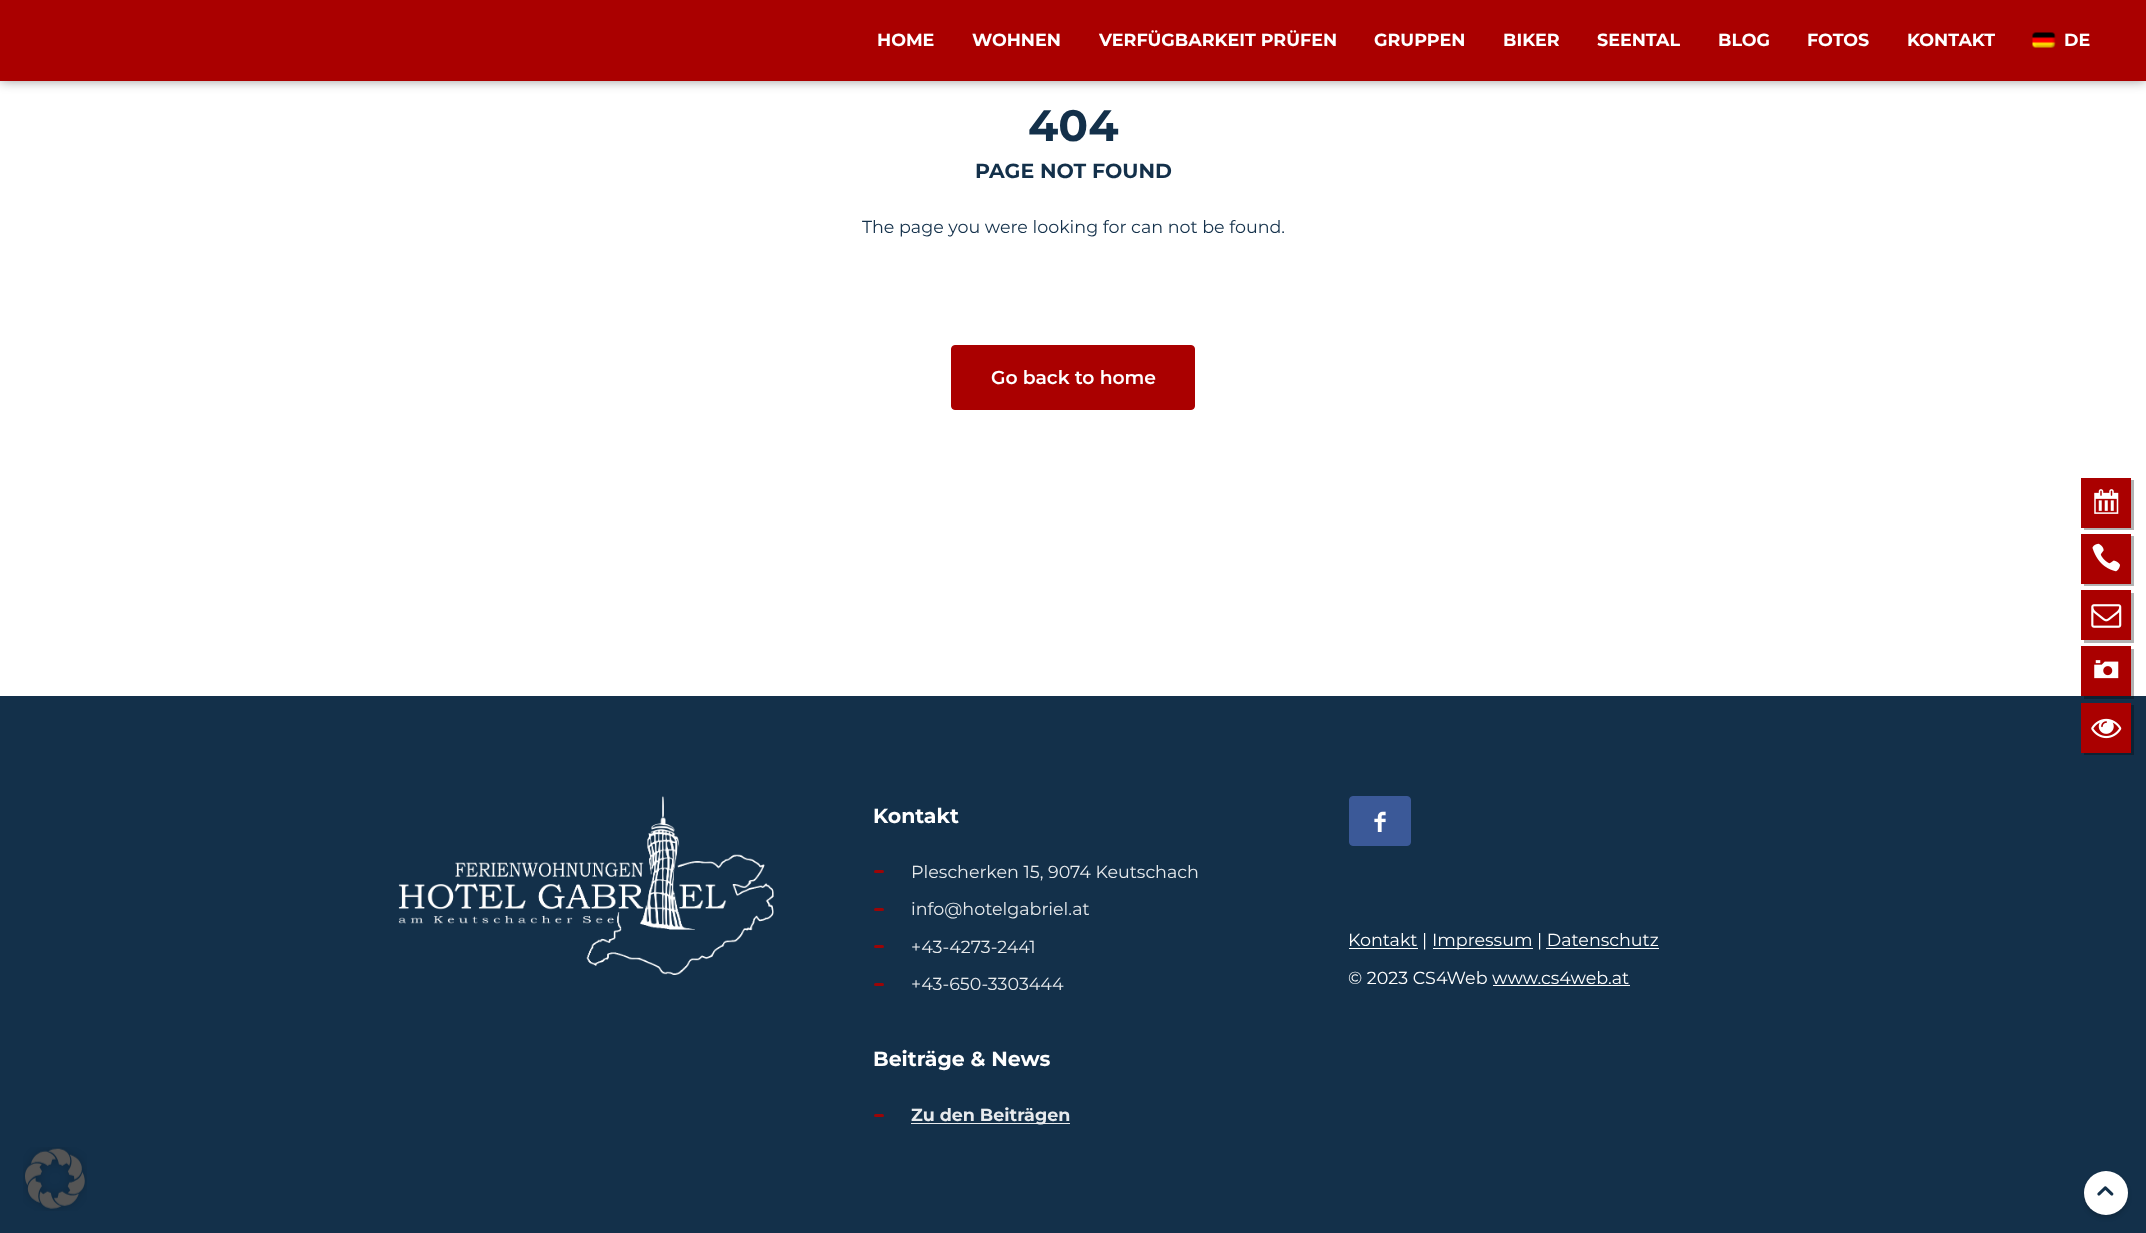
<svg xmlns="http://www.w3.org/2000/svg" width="2146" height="1233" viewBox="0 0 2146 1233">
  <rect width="100%" height="100%" fill="#fff"/>
  <path d="M0 0h2146v81H0z" fill="#00000066" filter="blur(6px)"/>
  <path d="M0 0h2146v81H0z" fill="#a00"/>
  <image x="2032" y="32" width="24" height="16" href="img/1.png"/>
  <rect x="951.5" y="345.5" width="243" height="64" rx="3.5" fill="#a00" stroke="#a00"/>
  <path d="M2084 527V530H2134V480H2131V527Z" fill="#b3b3b3"/>
  <path d="M2081 478h50v50H2081z" fill="#a00"/>
  <image x="2094" y="489" width="25" height="25" href="img/2.png"/>
  <path d="M2084 583V586H2134V536H2131V583Z" fill="#b3b3b3"/>
  <path d="M2081 534h50v50H2081z" fill="#a00"/>
  <image x="2092" y="543" width="28" height="29" href="img/3.png"/>
  <path d="M2084 639V643H2134V593H2131V639Z" fill="#b3b3b3"/>
  <path d="M2081 590h50v50H2081z" fill="#a00"/>
  <image x="2091" y="604" width="31" height="24" href="img/4.png"/>
  <path d="M0 696h2146v537H0z" fill="#13304a"/>
  <path d="M2084 696V699H2134V649H2131V696Z" fill="#0000004d"/>
  <path d="M2081 646h50v50H2081z" fill="#a00"/>
  <image x="2094" y="660" width="25" height="19" href="img/5.png"/>
  <path d="M2084 752V755H2134V705H2131V752Z" fill="#0d2234"/>
  <path d="M2081 703h50v50H2081z" fill="#a00"/>
  <image x="2091" y="718" width="31" height="21" href="img/6.png"/>
  <image x="398" y="796" width="376" height="179" href="img/7.png"/>
  <rect x="874" y="870" width="10" height="3" rx="1.5" fill="#9b0507"/>
  <rect x="874" y="908" width="10" height="3" rx="1.5" fill="#9b0507"/>
  <rect x="874" y="945" width="10" height="3" rx="1.5" fill="#9b0507"/>
  <rect x="874" y="983" width="10" height="3" rx="1.5" fill="#9b0507"/>
  <rect x="874" y="1114" width="10" height="3" rx="1.5" fill="#9b0507"/>
  <path d="M911 1123h159v1H911z" fill="#e7eaed"/>
  <rect x="1349.5" y="796.5" width="61" height="49" rx="3.5" fill="#3b5998" stroke="#3b5998"/>
  <image x="1374" y="811" width="12" height="21" href="img/8.png"/>
  <path d="M1349 948h69v1H1349z" fill="#fff"/>
  <path d="M1433 948h100v1H1433z" fill="#fff"/>
  <path d="M1546 948h113v1H1546z" fill="#fff"/>
  <path d="M1493 985h137v1H1493z" fill="#fff"/>
  <image x="23" y="1147" width="64" height="64" href="img/9.png"/>
  <rect x="2084" y="1174" width="44" height="44" rx="22" fill="#0000002b" filter="blur(2px)"/>
  <circle cx="2106" cy="1193" r="22" fill="#fff"/>
  <image x="2097" y="1186" width="17" height="10" href="img/10.png"/>
  <g font-family="Montserrat" font-size="17.5" font-weight="100" fill="#fff">
    <text x="877" y="46">HOME</text>
    <text x="972" y="46">WOHNEN</text>
    <text x="1099" y="46">VERFÜGBARKEIT PRÜFEN</text>
    <text x="1374" y="46">GRUPPEN</text>
    <text x="1503" y="46">BIKER</text>
    <text x="1597" y="46">SEENTAL</text>
    <text x="1718" y="46">BLOG</text>
    <text x="1807" y="46">FOTOS</text>
    <text x="1907" y="46">KONTAKT</text>
    <text x="2064" y="46">DE</text>
  </g>
  <text x="1028" y="141" font-family="Montserrat" font-size="44" font-weight="100" fill="#13304a">404</text>
  <text x="975" y="178" font-family="Montserrat" font-size="20.5" font-weight="100" fill="#13304a">PAGE NOT FOUND</text>
  <text x="862" y="233" font-family="'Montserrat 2'" font-size="17.5" font-weight="100" fill="#13304a">The page you were looking for can not be found.</text>
  <text x="991" y="384" font-family="'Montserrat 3'" font-size="18.75" font-weight="100" fill="#fff">Go back to home</text>
  <text x="873" y="823" font-family="Montserrat" font-size="20.5" font-weight="100" fill="#fff">Kontakt</text>
  <g font-family="'Montserrat 2'" font-size="17.5" font-weight="100" fill="#e7eaed">
    <text x="911" y="878">Plescherken 15, 9074 Keutschach</text>
    <text x="911" y="915">info@hotelgabriel.at</text>
    <text x="911" y="953">+43-4273-2441</text>
    <text x="911" y="990">+43-650-3303444</text>
  </g>
  <text x="873" y="1066" font-family="Montserrat" font-size="20.5" font-weight="100" fill="#fff">Beiträge &amp; News</text>
  <text x="911" y="1121" font-family="Montserrat" font-size="17.5" font-weight="100" fill="#e7eaed">Zu den Beiträgen</text>
  <g font-family="'Montserrat 2'" font-size="17.5" font-weight="100" fill="#fff">
    <text x="1348" y="946">Kontakt |</text>
    <text x="1432" y="946">Impressum | Datenschutz</text>
    <text x="1348" y="984">© 2023 CS4Web www.cs4web.at</text>
  </g>
</svg>
